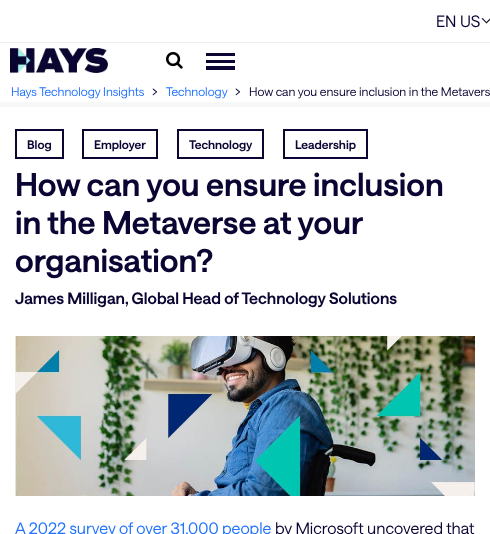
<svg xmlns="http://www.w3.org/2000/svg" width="490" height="534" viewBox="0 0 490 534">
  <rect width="100%" height="100%" fill="#f6f7f7"/>
  <path d="M0 0h490v102H0z" fill="#fff"/>
  <path d="M0 42h490v1H0z" fill="#eee"/>
  <path d="M486 22.5L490.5 18L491.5 18.5L486.5 23.5Z" fill="#000"/>
  <path d="M481.5 18.5L482.5 18L487 22.5L486.5 23.5Z" fill="#0a0532"/>
  <image x="10" y="48" width="98" height="25" href="img/1.png"/>
  <image x="166" y="52" width="17" height="17" href="img/2.png"/>
  <path d="M206 53h29v3H206z" fill="#0a0532"/>
  <path d="M206 60h29v3H206z" fill="#0a0532"/>
  <path d="M206 66h29v4H206z" fill="#0a0532"/>
  <path d="M0 107h490v427H0z" fill="#fff"/>
  <path d="M16 130h47v28H16z" fill="none" stroke="#0a0532" stroke-width="2"/>
  <path d="M83 130h74v28H83z" fill="none" stroke="#0a0532" stroke-width="2"/>
  <path d="M178 130h85v28H178z" fill="none" stroke="#0a0532" stroke-width="2"/>
  <path d="M284 130h83v28H284z" fill="none" stroke="#0a0532" stroke-width="2"/>
  <image x="15" y="336" width="460" height="160" href="img/3.png"/>
  <text x="436" y="27" font-family="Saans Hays" font-size="16" fill="#0a0532">EN US</text>
  <text x="11" y="96" font-family="Saans Hays" font-size="12" fill="#2173ff">Hays Technology Insights</text>
  <text x="152" y="96" font-family="Saans Hays" font-size="16" fill="#0a0532">›</text>
  <text x="166" y="96" font-family="Saans Hays" font-size="12" fill="#2173ff">Technology</text>
  <text x="235" y="96" font-family="Saans Hays" font-size="16" fill="#0a0532">›</text>
  <text x="249" y="96" font-family="Saans Hays" font-size="12" fill="#0a0532">How can you ensure inclusion in the Metavers</text>
  <g font-family="Saans Hays" font-size="12" font-weight="600" fill="#0a0532">
    <text x="27" y="149">Blog</text>
    <text x="94" y="149">Employer</text>
    <text x="189" y="149">Technology</text>
    <text x="295" y="149">Leadership</text>
  </g>
  <g font-family="Saans Hays" font-size="32" font-weight="600" fill="#0a0532">
    <text x="15" y="196">How can you ensure inclusion</text>
    <text x="15" y="234">in the Metaverse at your</text>
    <text x="15" y="272">organisation?</text>
  </g>
  <text x="15" y="304" font-family="Saans Hays" font-size="16" font-weight="600" fill="#0a0532">James Milligan, Global Head of Technology Solutions</text>
  <text x="15" y="534" font-family="Saans Hays" font-size="16" fill="#2173ff">A 2022 survey of over 31,000 people</text>
  <text x="275" y="534" font-family="Saans Hays" font-size="16" fill="#0a0532">by Microsoft uncovered that</text>
</svg>
